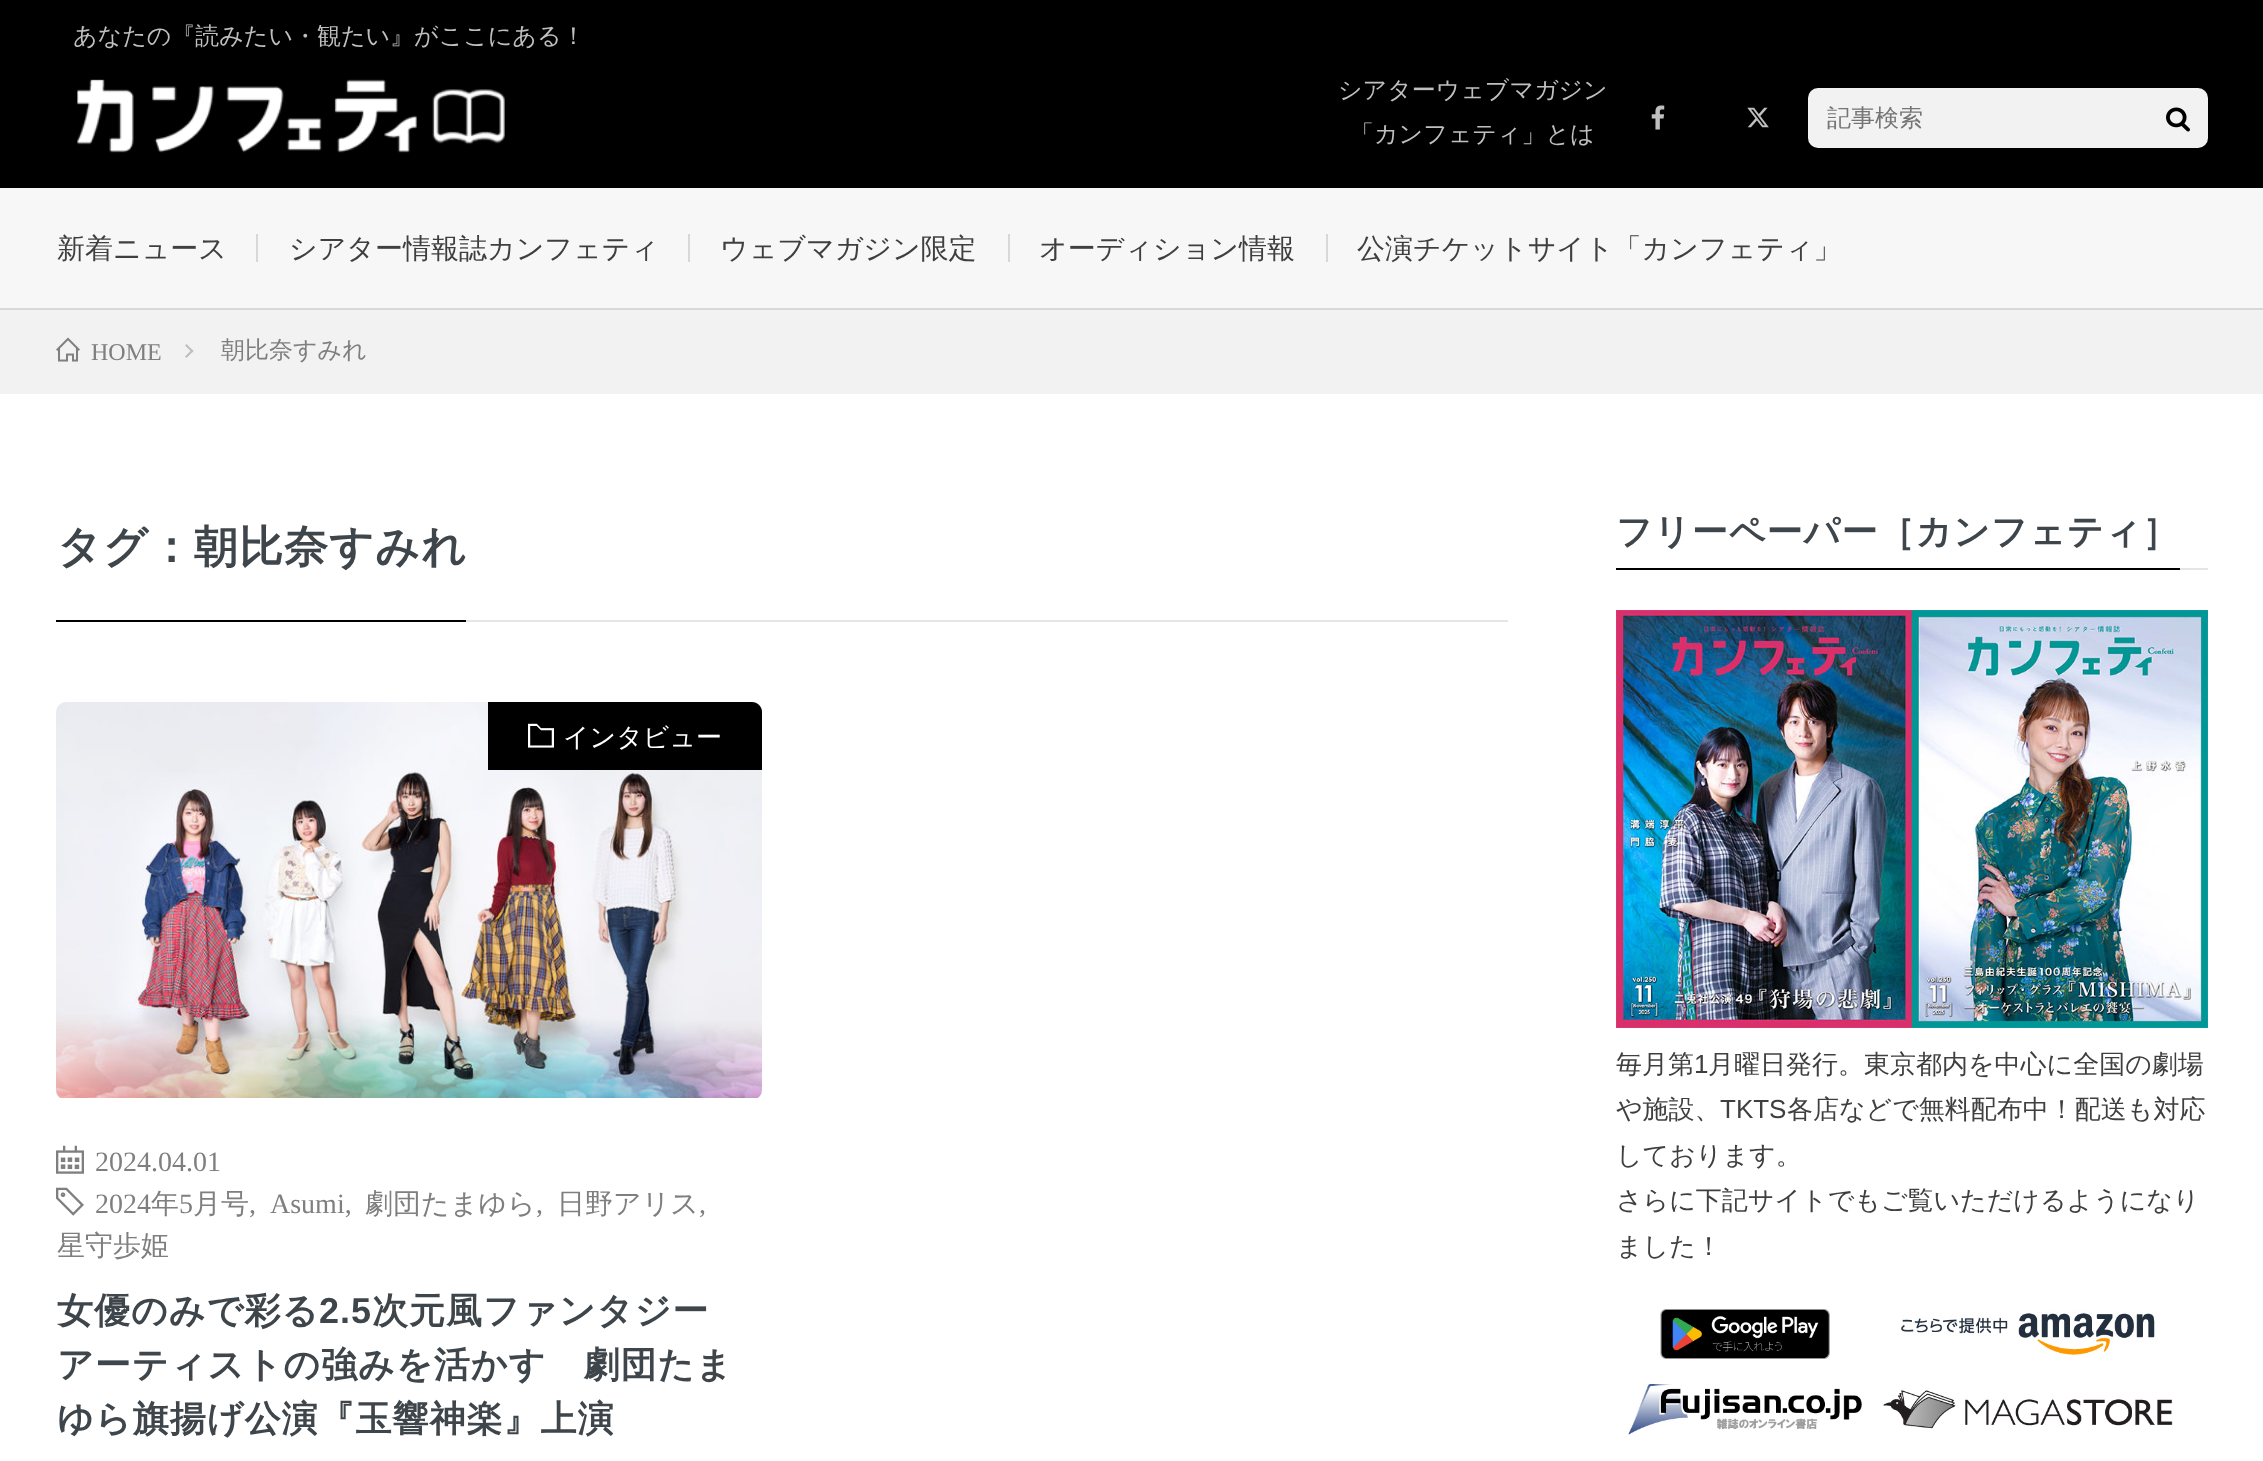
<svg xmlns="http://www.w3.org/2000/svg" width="2263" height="1461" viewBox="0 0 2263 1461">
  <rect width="100%" height="100%" fill="#fff"/>
  <path d="M0 0h2263v188H0z" fill="#000"/>
  <image x="77" y="79" width="428" height="74" href="img/1.png"/>
  <image x="1651" y="105" width="14" height="25" href="img/2.png"/>
  <image x="1747" y="107" width="22" height="21" href="img/3.png"/>
  <rect x="1808" y="88" width="400" height="60" rx="10" fill="#f2f2f2"/>
  <image x="2166" y="107" width="24" height="25" href="img/4.png"/>
  <path d="M0 188h2263v120H0z" fill="#f7f7f7"/>
  <path d="M0 308h2263v2H0z" fill="#d8d8d8"/>
  <path d="M256 234h2v28H256z" fill="#d8d8d8"/>
  <path d="M688 234h2v28H688z" fill="#d8d8d8"/>
  <path d="M1008 234h2v28H1008z" fill="#d8d8d8"/>
  <path d="M1326 234h2v28H1326z" fill="#d8d8d8"/>
  <path d="M0 310h2263v84H0z" fill="#f2f2f2"/>
  <image x="56" y="337" width="24" height="25" href="img/5.png"/>
  <path d="M186.5 344L193.5 351L192 352.5L185 345.5Z" fill="#bfbfbf"/>
  <path d="M192 349.5L193.5 351L186.5 358L185 356.5Z" fill="#bfbfbf"/>
  <path d="M56 620h410v2H56z" fill="#000"/>
  <path d="M466 620h1042v2H466z" fill="#e5e5e5"/>
  <image x="56" y="702" width="706" height="396" href="img/6.png"/>
  <path d="M488 702H752C757.5 702 762 706.5 762 712V770H488Z" fill="#000"/>
  <image x="528" y="723" width="26" height="25" href="img/7.png"/>
  <image x="56" y="1145" width="28" height="29" href="img/8.png"/>
  <image x="56" y="1187" width="28" height="29" href="img/9.png"/>
  <path d="M1616 568h564v2H1616z" fill="#000"/>
  <path d="M2180 568h28v2H2180z" fill="#e5e5e5"/>
  <image x="1616" y="610" width="592" height="418" href="img/10.png"/>
  <image x="1628" y="1309" width="545" height="126" href="img/11.png"/>
  <g font-family="WenQuanYi Zen Hei" font-size="24" font-weight="500" fill="#bfbfbf">
    <text x="73" y="44">あなたの『読みたい・観たい』がここにある！</text>
    <text x="1338" y="98">シアターウェブマガジン</text>
    <text x="1350" y="142">「カンフェティ」とは</text>
  </g>
  <text x="1827" y="126" font-family="WenQuanYi Zen Hei" font-size="24" font-weight="500" fill="#757575">記事検索</text>
  <g font-family="WenQuanYi Zen Hei" font-size="28" font-weight="500" fill="#3f3f3f">
    <text x="57" y="258">新着ニュース</text>
    <text x="289" y="258">シアター情報誌カンフェティ</text>
    <text x="720" y="258">ウェブマガジン限定</text>
    <text x="1039" y="258">オーディション情報</text>
    <text x="1357" y="258">公演チケットサイト「カンフェティ」</text>
  </g>
  <text x="91" y="360" font-family="Liberation Serif" font-size="24" fill="#7f7f7f">HOME</text>
  <text x="221" y="358" font-family="WenQuanYi Zen Hei" font-size="24" font-weight="500" fill="#7f7f7f">朝比奈すみれ</text>
  <text x="57" y="562" font-family="WenQuanYi Zen Hei" font-size="44" font-weight="bold" letter-spacing="1" fill="#3f464b">タグ：朝比奈すみれ</text>
  <text x="563" y="746" font-family="WenQuanYi Zen Hei" font-size="26" font-weight="500" fill="#fff">インタビュー</text>
  <g font-family="Liberation Serif" font-size="28" fill="#7f7f7f">
    <text x="95" y="1171">2024.04.01</text>
    <text x="95" y="1213">2024</text>
  </g>
  <text x="151" y="1213" font-family="WenQuanYi Zen Hei" font-size="28" font-weight="500" fill="#7f7f7f">年</text>
  <text x="179" y="1213" font-family="Liberation Serif" font-size="28" fill="#7f7f7f">5</text>
  <text x="193" y="1213" font-family="WenQuanYi Zen Hei" font-size="28" font-weight="500" fill="#7f7f7f">月号</text>
  <g font-family="Liberation Serif" font-size="28" fill="#7f7f7f">
    <text x="249" y="1213">,</text>
    <text x="270" y="1213">Asumi,</text>
  </g>
  <text x="365" y="1213" font-family="WenQuanYi Zen Hei" font-size="28" font-weight="500" fill="#7f7f7f">劇団たまゆら</text>
  <text x="536" y="1213" font-family="Liberation Serif" font-size="28" fill="#7f7f7f">,</text>
  <text x="557" y="1213" font-family="WenQuanYi Zen Hei" font-size="28" font-weight="500" fill="#7f7f7f">日野アリス</text>
  <text x="699" y="1213" font-family="Liberation Serif" font-size="28" fill="#7f7f7f">,</text>
  <text x="57" y="1255" font-family="WenQuanYi Zen Hei" font-size="28" font-weight="500" fill="#7f7f7f">星守歩姫</text>
  <text x="57" y="1323" font-family="WenQuanYi Zen Hei" font-size="36" font-weight="bold" letter-spacing="1" fill="#3f464b">女優のみで彩る</text>
  <text x="319" y="1323" font-family="Liberation Sans" font-size="36" font-weight="bold" letter-spacing="1" fill="#3f464b">2.5</text>
  <g font-family="WenQuanYi Zen Hei" font-size="36" font-weight="bold" letter-spacing="1" fill="#3f464b">
    <text x="372" y="1323">次元風ファンタジー</text>
    <text x="57" y="1377">アーティストの強みを活かす　劇団たま</text>
    <text x="57" y="1431">ゆら旗揚げ公演『玉響神楽』上演</text>
    <text x="1616" y="544">フリーペーパー［カンフェティ］</text>
  </g>
  <text x="1616" y="1073" font-family="WenQuanYi Zen Hei" font-size="26" font-weight="500" fill="#3f3f3f">毎月第</text>
  <text x="1694" y="1073" font-family="Liberation Sans" font-size="26" fill="#3f3f3f">1</text>
  <g font-family="WenQuanYi Zen Hei" font-size="26" font-weight="500" fill="#3f3f3f">
    <text x="1708" y="1073">月曜日発行。東京都内を中心に全国の劇場</text>
    <text x="1616" y="1118">や施設、</text>
  </g>
  <text x="1720" y="1118" font-family="Liberation Sans" font-size="26" fill="#3f3f3f">TKTS</text>
  <g font-family="WenQuanYi Zen Hei" font-size="26" font-weight="500" fill="#3f3f3f">
    <text x="1787" y="1118">各店などで無料配布中！配送も対応</text>
    <text x="1616" y="1164">しております。</text>
    <text x="1616" y="1209">さらに下記サイトでもご覧いただけるようになり</text>
    <text x="1616" y="1255">ました！</text>
  </g>
</svg>
